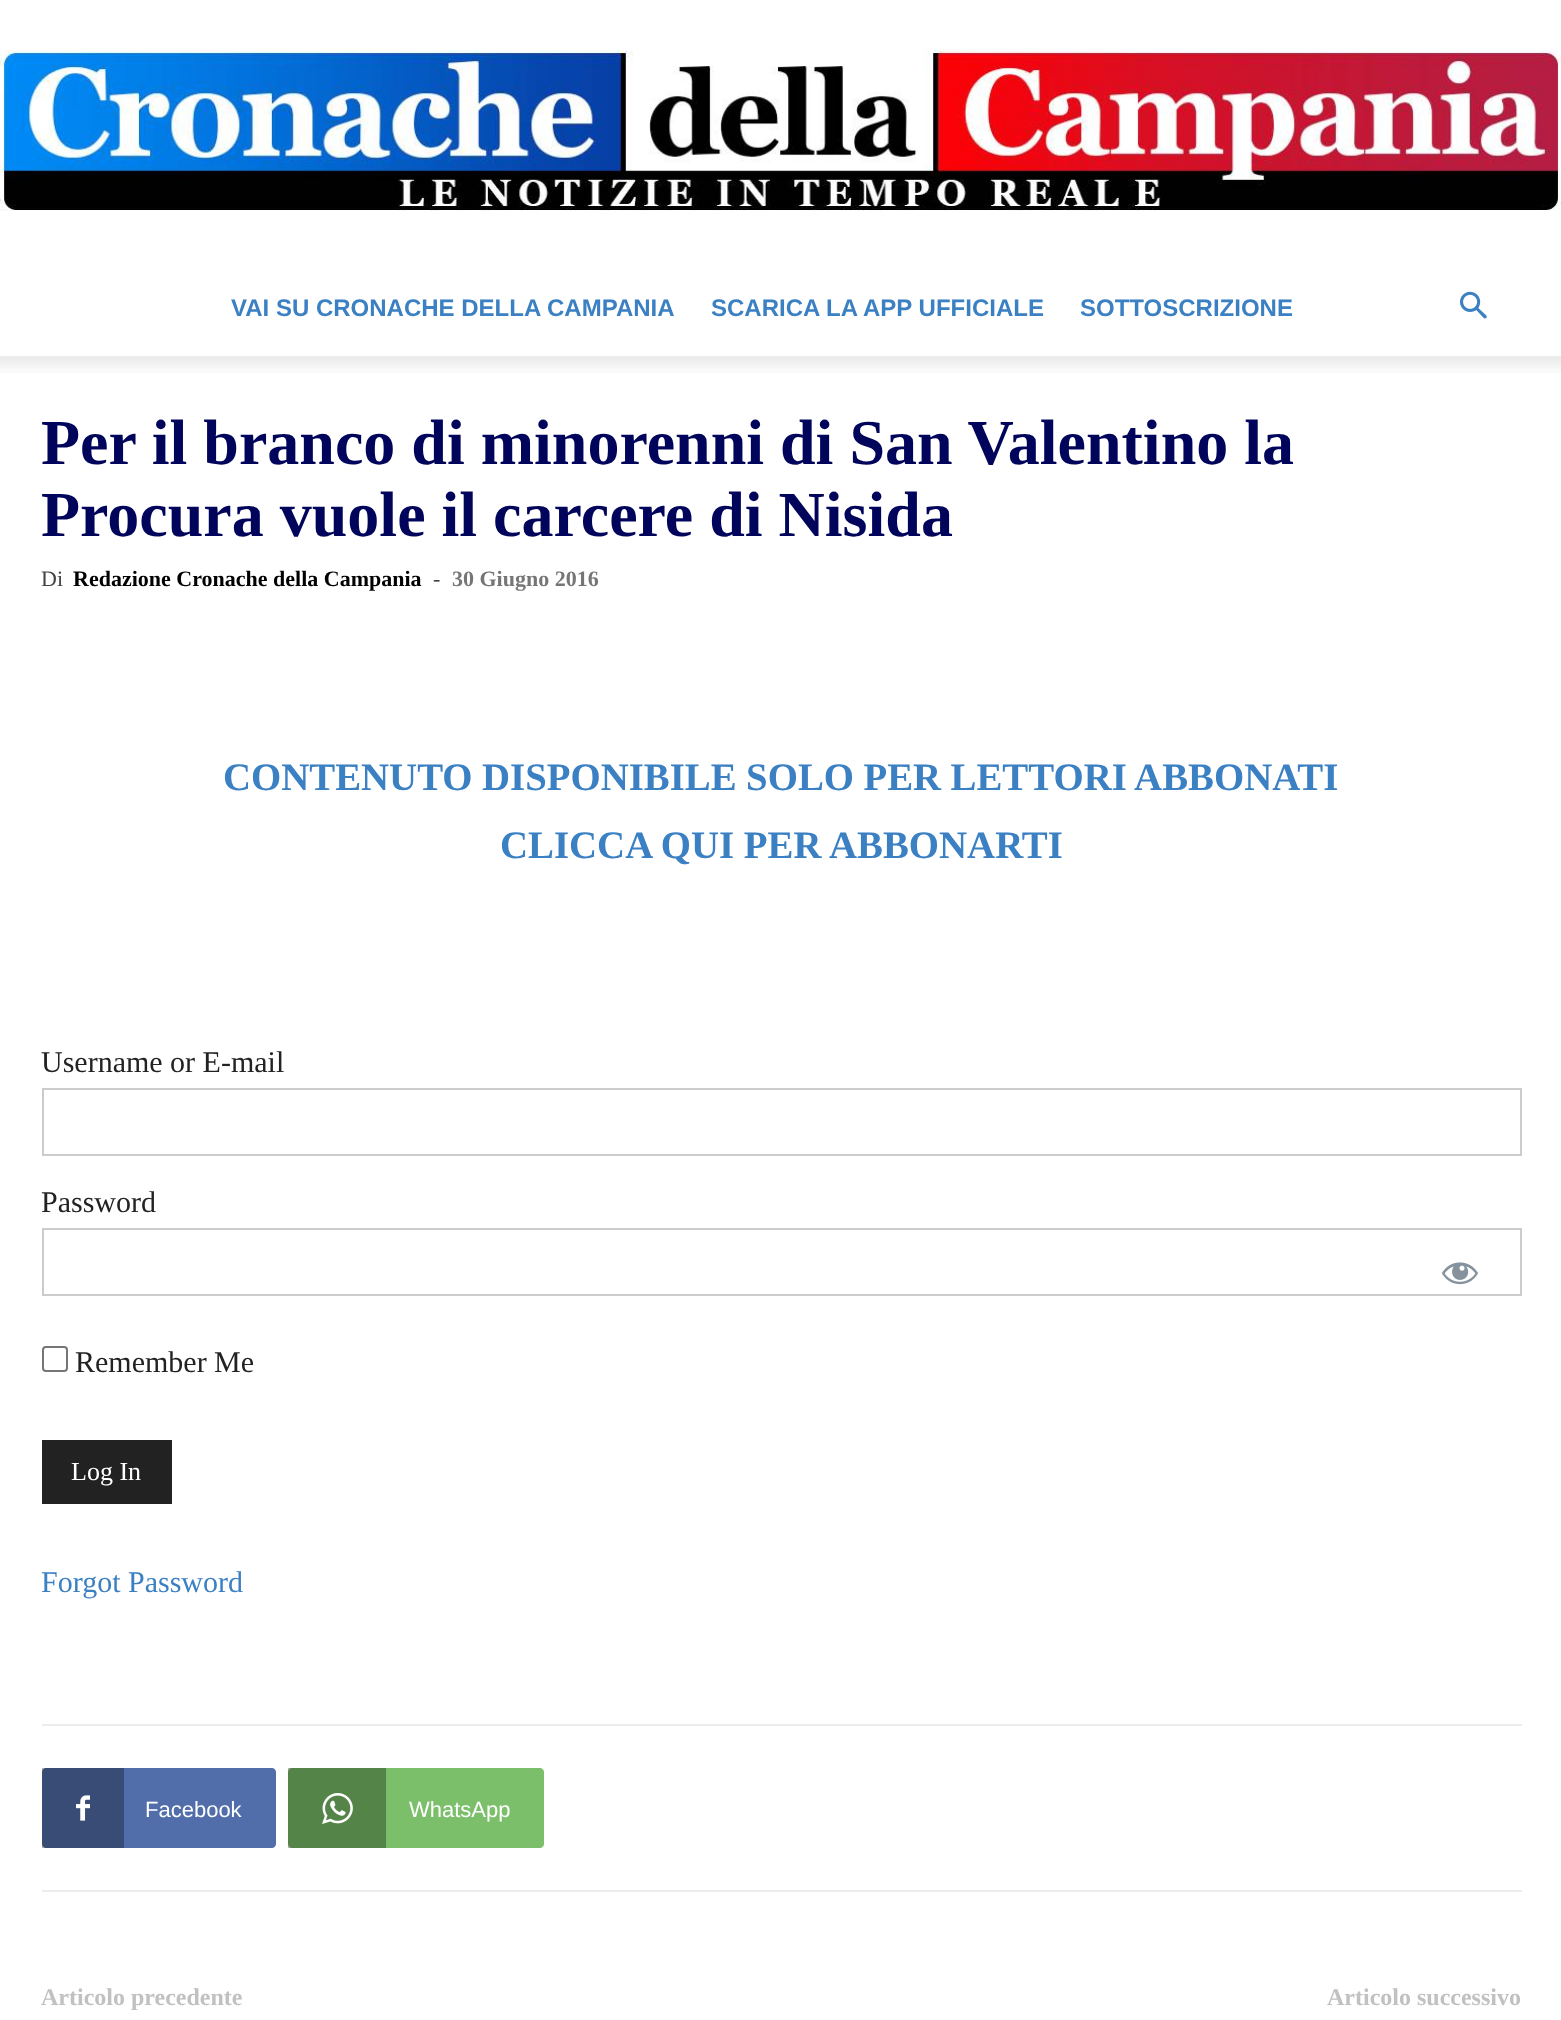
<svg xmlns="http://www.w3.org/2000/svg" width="1561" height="2020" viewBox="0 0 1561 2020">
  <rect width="100%" height="100%" fill="#fff"/>
  <image x="0" y="50" width="1561" height="161" href="img/1.png"/>
  <image x="1460" y="291" width="27" height="28" href="img/2.png"/>
  <image x="0" y="356" width="1561" height="17" href="img/3.png"/>
  <path d="M288 1768h4v80H288z" fill="#b0b0b0"/>
  <path d="M42 1768h4v80H42z" fill="#b0b0b0"/>
  <path d="M43 1089h1478v66H43z" fill="none" stroke="#ccc" stroke-width="2"/>
  <path d="M43 1229h1478v66H43z" fill="none" stroke="#ccc" stroke-width="2"/>
  <image x="1441" y="1262" width="38" height="23" href="img/4.png"/>
  <rect x="43" y="1347" width="24" height="24" rx="3" fill="none" stroke="#767676" stroke-width="2"/>
  <path d="M42 1440h130v64H42z" fill="#222"/>
  <path d="M42 1724h1480v2H42z" fill="#ededed"/>
  <path d="M42 1890h1480v2H42z" fill="#ededed"/>
  <path d="M112 1768H272C274 1768 276 1770 276 1772V1844C276 1846 274 1848 272 1848H112Z" fill="#516eab"/>
  <path d="M46 1768H124V1848H46C44 1848 42 1846 42 1844V1772C42 1770 44 1768 46 1768Z" fill="#384c76"/>
  <image x="76" y="1795" width="14" height="26" href="img/5.png"/>
  <path d="M374 1768H540C542 1768 544 1770 544 1772V1844C544 1846 542 1848 540 1848H374Z" fill="#7bbf6a"/>
  <path d="M292 1768H386V1848H292C290 1848 288 1846 288 1844V1772C288 1770 290 1768 292 1768Z" fill="#558449"/>
  <image x="322" y="1793" width="31" height="31" href="img/6.png"/>
  <g font-family="Liberation Sans" font-size="24" font-weight="bold" fill="#3b80c3">
    <text x="231" y="316">VAI SU CRONACHE DELLA CAMPANIA</text>
    <text x="711" y="316">SCARICA LA APP UFFICIALE</text>
    <text x="1080" y="316">SOTTOSCRIZIONE</text>
  </g>
  <g font-family="Liberation Serif" font-size="64" font-weight="bold" fill="#00045b">
    <text x="41" y="464">Per il branco di minorenni di San Valentino la</text>
    <text x="41" y="536">Procura vuole il carcere di Nisida</text>
  </g>
  <text x="41" y="586" font-family="Liberation Serif" font-size="22" fill="#444">Di</text>
  <text x="73" y="586" font-family="Liberation Serif" font-size="22" font-weight="bold" fill="#000">Redazione Cronache della Campania</text>
  <text x="433" y="586" font-family="Liberation Serif" font-size="22" fill="#444">-</text>
  <text x="452" y="586" font-family="Liberation Serif" font-size="22" font-weight="bold" fill="#767676">30 Giugno 2016</text>
  <g font-family="Liberation Serif" font-size="38.85" font-weight="bold" fill="#3b80c3">
    <text x="223" y="790" word-spacing="-0.25">CONTENUTO DISPONIBILE SOLO PER LETTORI ABBONATI</text>
    <text x="500" y="858">CLICCA QUI PER ABBONARTI</text>
  </g>
  <g font-family="Liberation Serif" font-size="30" fill="#222">
    <text x="41" y="1072">Username or E-mail</text>
    <text x="41" y="1212">Password</text>
    <text x="75" y="1372">Remember Me</text>
  </g>
  <text x="71" y="1480" font-family="Liberation Serif" font-size="26" fill="#fff">Log In</text>
  <text x="41" y="1592" font-family="Liberation Serif" font-size="30" fill="#3b80c3">Forgot Password</text>
  <g font-family="Liberation Sans" font-size="22" fill="#fff">
    <text x="145" y="1817">Facebook</text>
    <text x="409" y="1817">WhatsApp</text>
  </g>
  <g font-family="Liberation Serif" font-size="24" font-weight="bold" fill="#c1c1c1">
    <text x="41" y="2005">Articolo precedente</text>
    <text x="1327" y="2005">Articolo successivo</text>
  </g>
</svg>
